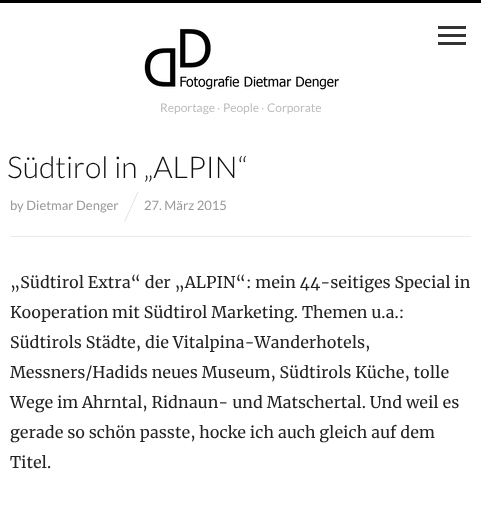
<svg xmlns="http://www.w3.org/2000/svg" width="481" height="509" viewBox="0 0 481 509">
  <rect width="100%" height="100%" fill="#fff"/>
  <path d="M438 34h28v3H438z" fill="#333"/>
  <path d="M438 26h28v3H438z" fill="#333"/>
  <path d="M438 42h28v3H438z" fill="#333"/>
  <path d="M0 0h481v3H0z" fill="#000"/>
  <image x="144" y="28" width="195" height="62" href="img/1.png"/>
  <path d="M10 236h461v1H10z" fill="#eaeaea"/>
  <image x="124" y="192" width="14" height="30" href="img/2.png"/>
  <text x="160" y="112" font-family="Lato" font-size="12" fill="#bdbdbd">Reportage</text>
  <text x="217" y="112" font-family="Liberation Sans" font-size="12" fill="#bdbdbd">∙</text>
  <text x="223" y="112" font-family="Lato" font-size="12" fill="#bdbdbd">People</text>
  <text x="261" y="112" font-family="Liberation Sans" font-size="12" fill="#bdbdbd">∙</text>
  <text x="267" y="112" font-family="Lato" font-size="12" fill="#bdbdbd">Corporate</text>
  <text x="7" y="178" font-family="Lato" font-size="30" font-weight="300" fill="#111">Südtirol in „ALPIN“</text>
  <g font-family="Lato" font-size="13" fill="#999">
    <text x="10" y="210">by Dietmar Denger</text>
    <text x="144" y="210">27. März 2015</text>
  </g>
  <g font-family="Merriweather" font-size="16" fill="#222">
    <text x="10" y="288">„Südtirol Extra“ der „ALPIN“: mein 44-seitiges Special in</text>
    <text x="10" y="318">Kooperation mit Südtirol Marketing. Themen u.a.:</text>
    <text x="10" y="348">Südtirols Städte, die Vitalpina-Wanderhotels,</text>
    <text x="10" y="378">Messners/Hadids neues Museum, Südtirols Küche, tolle</text>
    <text x="10" y="408">Wege im Ahrntal, Ridnaun- und Matschertal. Und weil es</text>
    <text x="10" y="438">gerade so schön passte, hocke ich auch gleich auf dem</text>
    <text x="10" y="468">Titel.</text>
  </g>
</svg>
